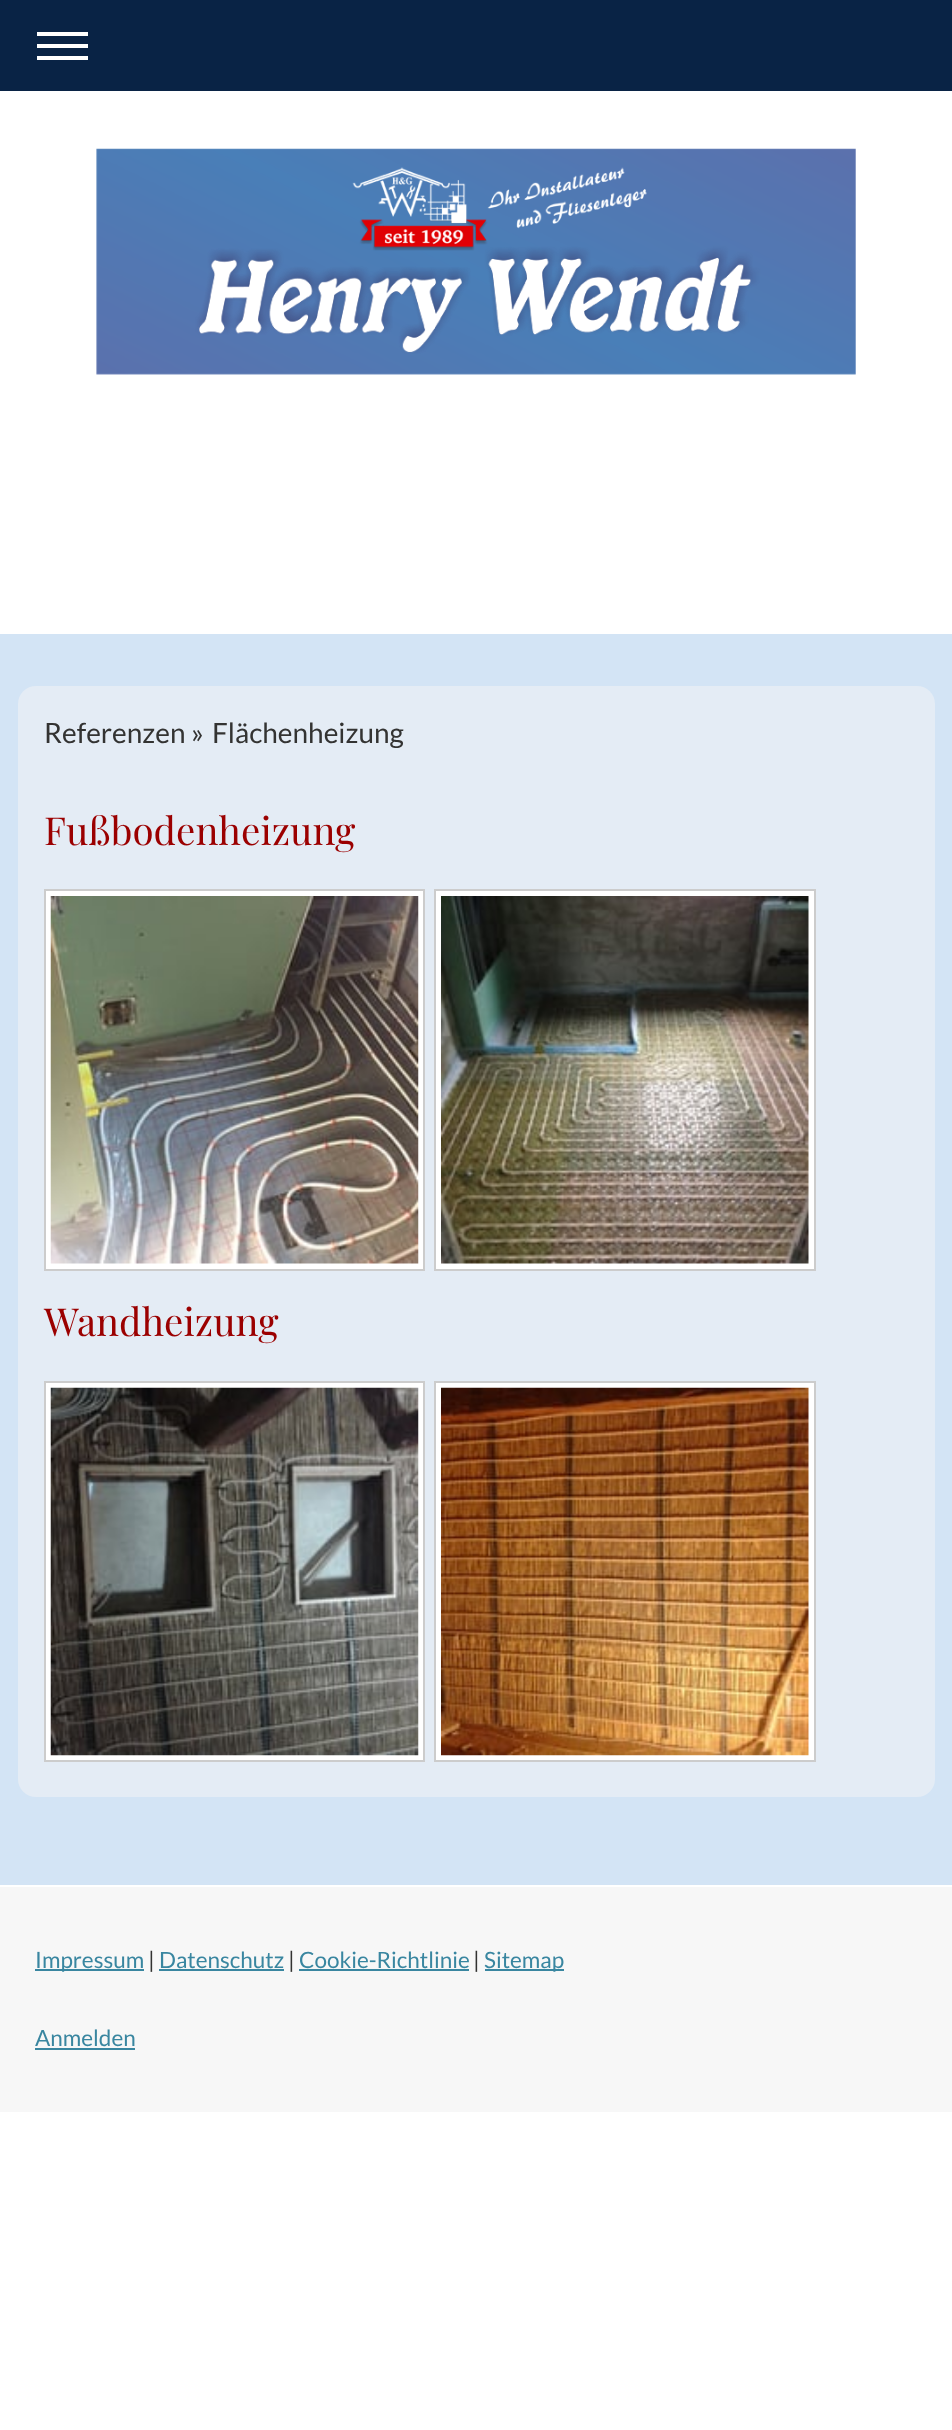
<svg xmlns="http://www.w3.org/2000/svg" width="952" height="2430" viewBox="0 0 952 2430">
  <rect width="100%" height="100%" fill="#fff"/>
  <path d="M0 0h952v91H0z" fill="#092345"/>
  <path d="M37 44h51v4H37z" fill="#fff"/>
  <path d="M37 32h51v4H37z" fill="#fff"/>
  <path d="M37 56h51v4H37z" fill="#fff"/>
  <image x="96" y="148" width="760" height="227" href="img/1.png"/>
  <path d="M0 634h952v1251H0z" fill="#d3e4f5"/>
  <rect x="18" y="686" width="917" height="1111" rx="18" fill="#e4ecf5"/>
  <path d="M45 890h379v380H45z" fill="#fff" stroke="#ccc" stroke-width="2"/>
  <image x="50" y="896" width="369" height="368" href="img/2.png"/>
  <path d="M435 890h380v380H435z" fill="#fff" stroke="#ccc" stroke-width="2"/>
  <image x="441" y="896" width="368" height="368" href="img/3.png"/>
  <path d="M45 1382h379v379H45z" fill="#fff" stroke="#ccc" stroke-width="2"/>
  <image x="50" y="1387" width="369" height="369" href="img/4.png"/>
  <path d="M435 1382h380v379H435z" fill="#fff" stroke="#ccc" stroke-width="2"/>
  <image x="441" y="1387" width="368" height="369" href="img/5.png"/>
  <path d="M0 1887h952v225H0z" fill="#f7f7f7"/>
  <path d="M35 1969h109v2H35z" fill="#3986a0"/>
  <path d="M159 1969h125v2H159z" fill="#3986a0"/>
  <path d="M299 1969h170v2H299z" fill="#3986a0"/>
  <path d="M485 1969h79v2H485z" fill="#3986a0"/>
  <path d="M35 2048h100v2H35z" fill="#3986a0"/>
  <g font-family="Lato" font-size="28" fill="#333332">
    <text x="44" y="743">Referenzen »</text>
    <text x="212" y="743">Flächenheizung</text>
  </g>
  <g font-family="Playfair Display" font-size="38.5" fill="#9b0000">
    <text x="44" y="845">Fußbodenheizung</text>
    <text x="44" y="1336">Wandheizung</text>
  </g>
  <text x="35" y="1968" font-family="Lato" font-size="22.5" fill="#3986a0">Impressum</text>
  <text x="148" y="1968" font-family="Lato" font-size="22.5" fill="#333332">|</text>
  <text x="159" y="1968" font-family="Lato" font-size="22.5" fill="#3986a0">Datenschutz</text>
  <text x="288" y="1968" font-family="Lato" font-size="22.5" fill="#333332">|</text>
  <text x="299" y="1968" font-family="Lato" font-size="22.5" fill="#3986a0">Cookie-Richtlinie</text>
  <text x="473" y="1968" font-family="Lato" font-size="22.5" fill="#333332">|</text>
  <g font-family="Lato" font-size="22.5" fill="#3986a0">
    <text x="484" y="1968">Sitemap</text>
    <text x="35" y="2046">Anmelden</text>
  </g>
</svg>
